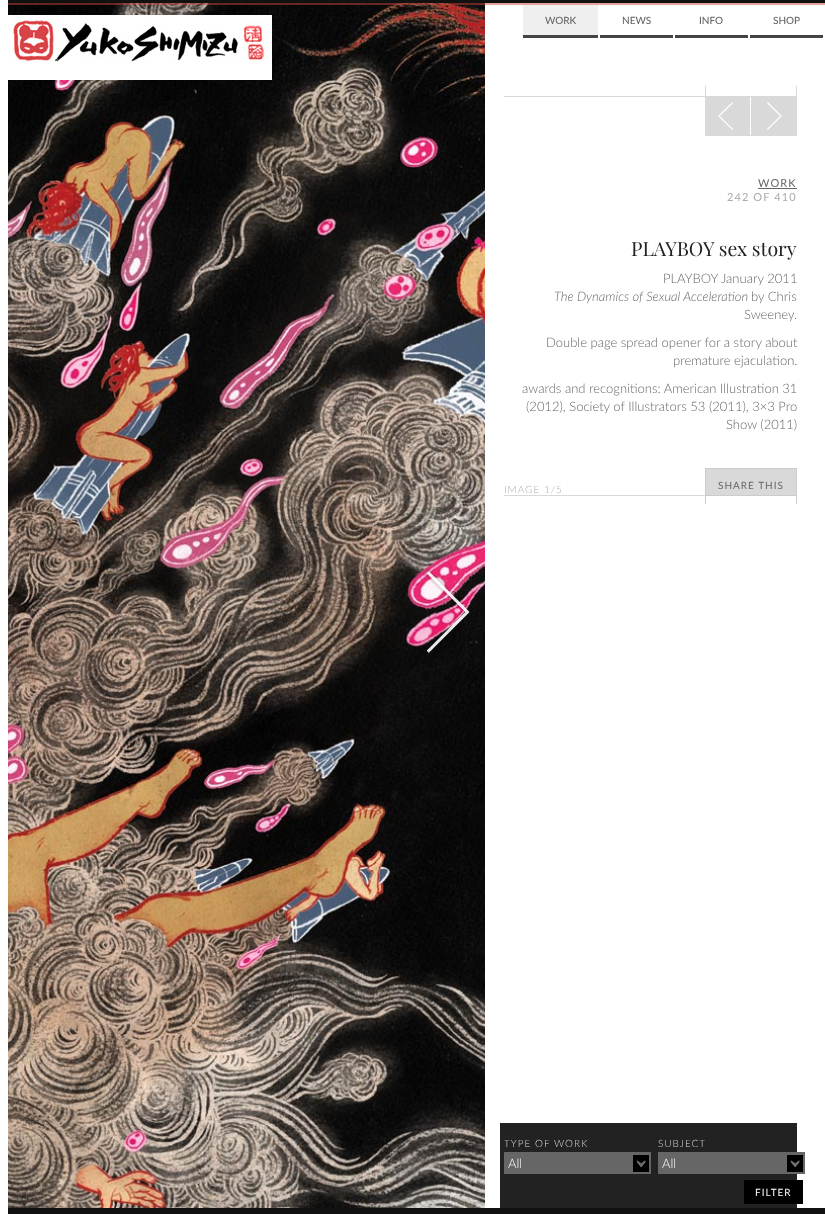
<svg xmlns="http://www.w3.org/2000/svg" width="825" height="1214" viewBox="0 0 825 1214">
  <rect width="100%" height="100%" fill="#fff"/>
  <path d="M8 0h817v3H8z" fill="#111"/>
  <image x="8" y="3" width="477" height="1205" href="img/2.png"/>
  <path d="M8 3h817v2H8z" fill="#cc433980"/>
  <path d="M8 15h264v65H8z" fill="#fff"/>
  <image x="12" y="20" width="255" height="43" href="img/1.png"/>
  <path d="M523 5h75v30H523z" fill="#efefef"/>
  <path d="M523 35h75v3H523z" fill="#444"/>
  <path d="M600 35h73v3H600z" fill="#444"/>
  <path d="M675 35h73v3H675z" fill="#444"/>
  <path d="M750 35h73v3H750z" fill="#444"/>
  <image x="424" y="568" width="46" height="86" href="img/3.png"/>
  <path d="M504 96h201v1H504z" fill="#d9d9d9"/>
  <path d="M796 86h1v50H796z" fill="#d9d9d9"/>
  <path d="M705 96h92v1H705z" fill="#d9d9d9"/>
  <path d="M705 86h1v11H705z" fill="#d9d9d9"/>
  <path d="M705 135h92v1H705z" fill="#d9d9d9"/>
  <path d="M705 97h1v39H705z" fill="#d9d9d9"/>
  <path d="M706 97h44v38H706z" fill="#d9d9d9"/>
  <image x="718" y="102" width="15" height="28" href="img/4.png"/>
  <path d="M751 97h45v38H751z" fill="#d9d9d9"/>
  <image x="767" y="102" width="15" height="28" href="img/5.png"/>
  <path d="M758 188h39v1H758z" fill="#666"/>
  <path d="M705 468h92v1H705z" fill="#ccc"/>
  <path d="M796 468h1v27H796z" fill="#ccc"/>
  <path d="M705 468h1v27H705z" fill="#ccc"/>
  <path d="M706 469h90v26H706z" fill="#d9d9d9"/>
  <path d="M504 495h201v1H504z" fill="#d9d9d9"/>
  <path d="M705 495h92v1H705z" fill="#ccc"/>
  <path d="M796 495h1v11H796z" fill="#ccc"/>
  <path d="M705 495h1v11H705z" fill="#ccc"/>
  <path d="M705 504h92v2H705z" fill="#fff"/>
  <path d="M500 1123h297v85H500z" fill="#222"/>
  <path d="M504 1152h147v22H504z" fill="#666"/>
  <image x="633" y="1155" width="16" height="17" href="img/6.png"/>
  <path d="M658 1152h147v22H658z" fill="#666"/>
  <image x="787" y="1155" width="16" height="17" href="img/6.png"/>
  <path d="M744 1180h59v24H744z" fill="#000"/>
  <path d="M8 1208h817v6H8z" fill="#111"/>
  <g font-family="Lato" font-size="10" font-weight="500" fill="#666">
    <text x="545" y="24">WORK</text>
    <text x="622" y="24">NEWS</text>
    <text x="699" y="24">INFO</text>
    <text x="773" y="24">SHOP</text>
  </g>
  <text x="758" y="187" font-family="Lato" font-size="11" letter-spacing="1.1" fill="#666">WORK</text>
  <text x="727" y="201" font-family="Lato" font-size="11" letter-spacing="1.1" fill="#aaa">242 OF 410</text>
  <text x="631" y="256" font-family="Playfair Display" font-size="19.5" fill="#222">PLAYBOY sex story</text>
  <text x="663" y="283" font-family="Lato" font-size="13" font-weight="300" fill="#666">PLAYBOY January 2011</text>
  <text x="554" y="301" font-family="Lato" font-size="13" font-weight="300" font-style="italic" fill="#666">The Dynamics of Sexual Acceleration</text>
  <g font-family="Lato" font-size="13" font-weight="300" fill="#666">
    <text x="751" y="301">by Chris</text>
    <text x="744" y="319">Sweeney.</text>
    <text x="546" y="347">Double page spread opener for a story about</text>
    <text x="673" y="365">premature ejaculation.</text>
    <text x="522" y="393">awards and recognitions: American Illustration 31</text>
    <text x="526" y="411">(2012), Society of Illustrators 53 (2011), 3×3 Pro</text>
    <text x="726" y="429">Show (2011)</text>
  </g>
  <text x="504" y="493" font-family="Lato" font-size="10" font-weight="300" letter-spacing="1" fill="#aaa">IMAGE 1/5</text>
  <text x="718" y="489" font-family="Lato" font-size="10" letter-spacing="1" fill="#666">SHARE THIS</text>
  <text x="504" y="1147" font-family="Lato" font-size="10" font-weight="300" letter-spacing="1" fill="#ddd">TYPE OF WORK</text>
  <text x="508" y="1168" font-family="Lato" font-size="13" font-weight="300" fill="#fdfdfd">All</text>
  <text x="658" y="1147" font-family="Lato" font-size="10" font-weight="300" letter-spacing="1" fill="#ddd">SUBJECT</text>
  <text x="662" y="1168" font-family="Lato" font-size="13" font-weight="300" fill="#fdfdfd">All</text>
  <text x="755" y="1196" font-family="Lato" font-size="10" letter-spacing="1" fill="#fdfdfd">FILTER</text>
</svg>
